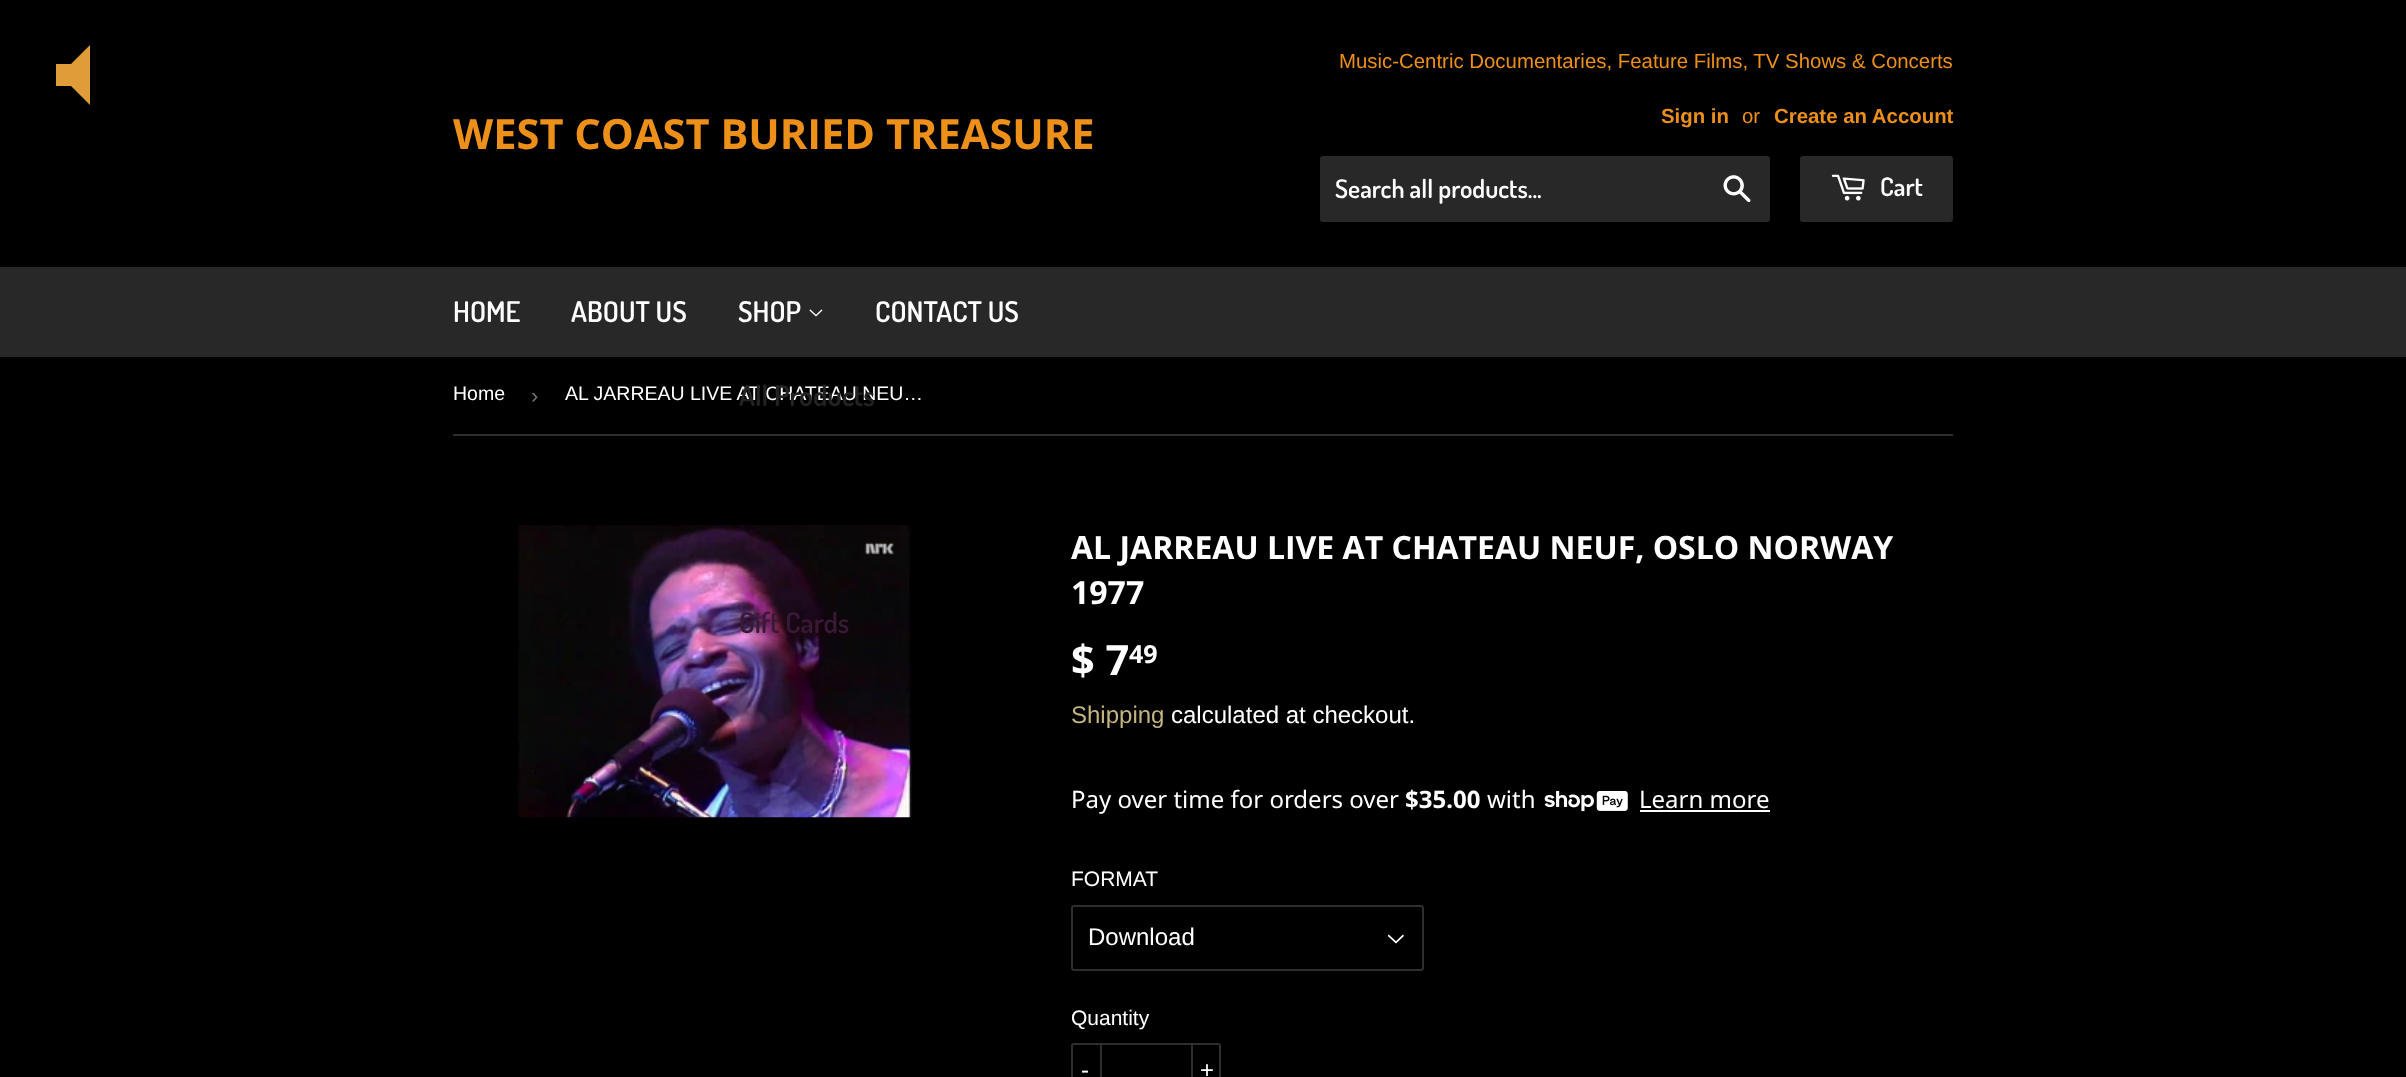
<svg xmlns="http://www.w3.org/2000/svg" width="2406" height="1077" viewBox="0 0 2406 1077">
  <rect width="100%" height="100%" fill="#000"/>
  <path d="M56 64V86H71L90 105V45L71 64Z" fill="#df9c38"/>
  <rect x="1320" y="156" width="450" height="66" rx="3" fill="#282828"/>
  <image x="1723" y="175" width="28" height="28" href="img/1.png"/>
  <rect x="1800" y="156" width="153" height="66" rx="3" fill="#282828"/>
  <image x="1831" y="174" width="34" height="27" href="img/2.png"/>
  <path d="M0 267h2406v90H0z" fill="#282828"/>
  <image x="809" y="309" width="14" height="8" href="img/3.png"/>
  <path d="M453 434h1500v2H453z" fill="#2e2e2e"/>
  <image x="517" y="525" width="396" height="293" href="img/4.png"/>
  <image x="1544" y="791" width="84" height="21" href="img/5.png"/>
  <path d="M1640 810h130v2H1640z" fill="#fff"/>
  <image x="1387" y="934" width="17" height="10" href="img/6.png"/>
  <rect x="1072" y="906" width="351" height="64" rx="2" fill="none" stroke="#2e2e2e" stroke-width="2"/>
  <rect x="1072" y="1044" width="148" height="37" rx="2" fill="none" stroke="#2e2e2e" stroke-width="2"/>
  <path d="M1100 1043h2v34H1100z" fill="#2e2e2e"/>
  <path d="M1191 1043h2v34H1191z" fill="#2e2e2e"/>
  <text x="453" y="149" font-family="Open Sans" font-size="41.6" font-weight="bold" fill="#ed9019">WEST COAST BURIED TREASURE</text>
  <text x="1339" y="68" font-family="Liberation Sans" font-size="20.4" fill="#ed9019">Music-Centric Documentaries, Feature Films, TV Shows &amp; Concerts</text>
  <text x="1661" y="123" font-family="Liberation Sans" font-size="20.4" font-weight="bold" fill="#ed9019">Sign in</text>
  <text x="1742" y="123" font-family="Liberation Sans" font-size="20.4" fill="#ed9019">or</text>
  <text x="1774" y="123" font-family="Liberation Sans" font-size="20.4" font-weight="bold" fill="#ed9019">Create an Account</text>
  <g font-family="Dosis" font-size="25.5" font-weight="600" fill="#fff">
    <text x="1335" y="198">Search all products...</text>
    <text x="1880" y="196">Cart</text>
  </g>
  <g font-family="Dosis" font-size="28.5" font-weight="600" fill="#fff">
    <text x="453" y="322">HOME</text>
    <text x="571" y="322">ABOUT US</text>
    <text x="738" y="322">SHOP</text>
  </g>
  <text x="739" y="633" font-family="Dosis" font-size="28.5" font-weight="600" fill="#391935">Gift Cards</text>
  <text x="875" y="322" font-family="Dosis" font-size="28.5" font-weight="600" fill="#fff">CONTACT US</text>
  <text x="453" y="400" font-family="Liberation Sans" font-size="19.5" fill="#fff">Home</text>
  <text x="531" y="403" font-family="Liberation Sans" font-size="22" fill="#767676">›</text>
  <text x="565" y="400" font-family="Liberation Sans" font-size="19.5" fill="#fff">AL JARREAU LIVE AT CHATEAU NEU…</text>
  <text x="739" y="406" font-family="Dosis" font-size="28.5" font-weight="600" fill="#232323">All Products</text>
  <g font-family="Open Sans" font-size="32" font-weight="bold" fill="#fff">
    <text x="1071" y="559">AL JARREAU LIVE AT CHATEAU NEUF, OSLO NORWAY</text>
    <text x="1071" y="604">1977</text>
  </g>
  <text x="1071" y="675" font-family="Open Sans" font-size="41.6" font-weight="bold" fill="#fff">$ 7</text>
  <text x="1129" y="663" font-family="Open Sans" font-size="25" font-weight="bold" fill="#fff">49</text>
  <text x="1071" y="723" font-family="Liberation Sans" font-size="24" fill="#c4b47f">Shipping</text>
  <text x="1171" y="723" font-family="Liberation Sans" font-size="24" fill="#fff">calculated at checkout.</text>
  <text x="1071" y="808" font-family="Noto Sans" font-size="24" fill="#fff">Pay over time for orders over</text>
  <text x="1405" y="808" font-family="Noto Sans" font-size="24" font-weight="bold" fill="#fff">$35.00</text>
  <g font-family="Noto Sans" font-size="24" fill="#fff">
    <text x="1487" y="808">with</text>
    <text x="1639" y="808">Learn more</text>
  </g>
  <text x="1071" y="886" font-family="Liberation Sans" font-size="21" fill="#fff">FORMAT</text>
  <text x="1088" y="945" font-family="Liberation Sans" font-size="24" fill="#fff">Download</text>
  <text x="1071" y="1025" font-family="Liberation Sans" font-size="21" fill="#fff">Quantity</text>
  <g font-family="Liberation Sans" font-size="24" fill="#fff">
    <text x="1081" y="1078">-</text>
    <text x="1200" y="1078">+</text>
  </g>
</svg>
